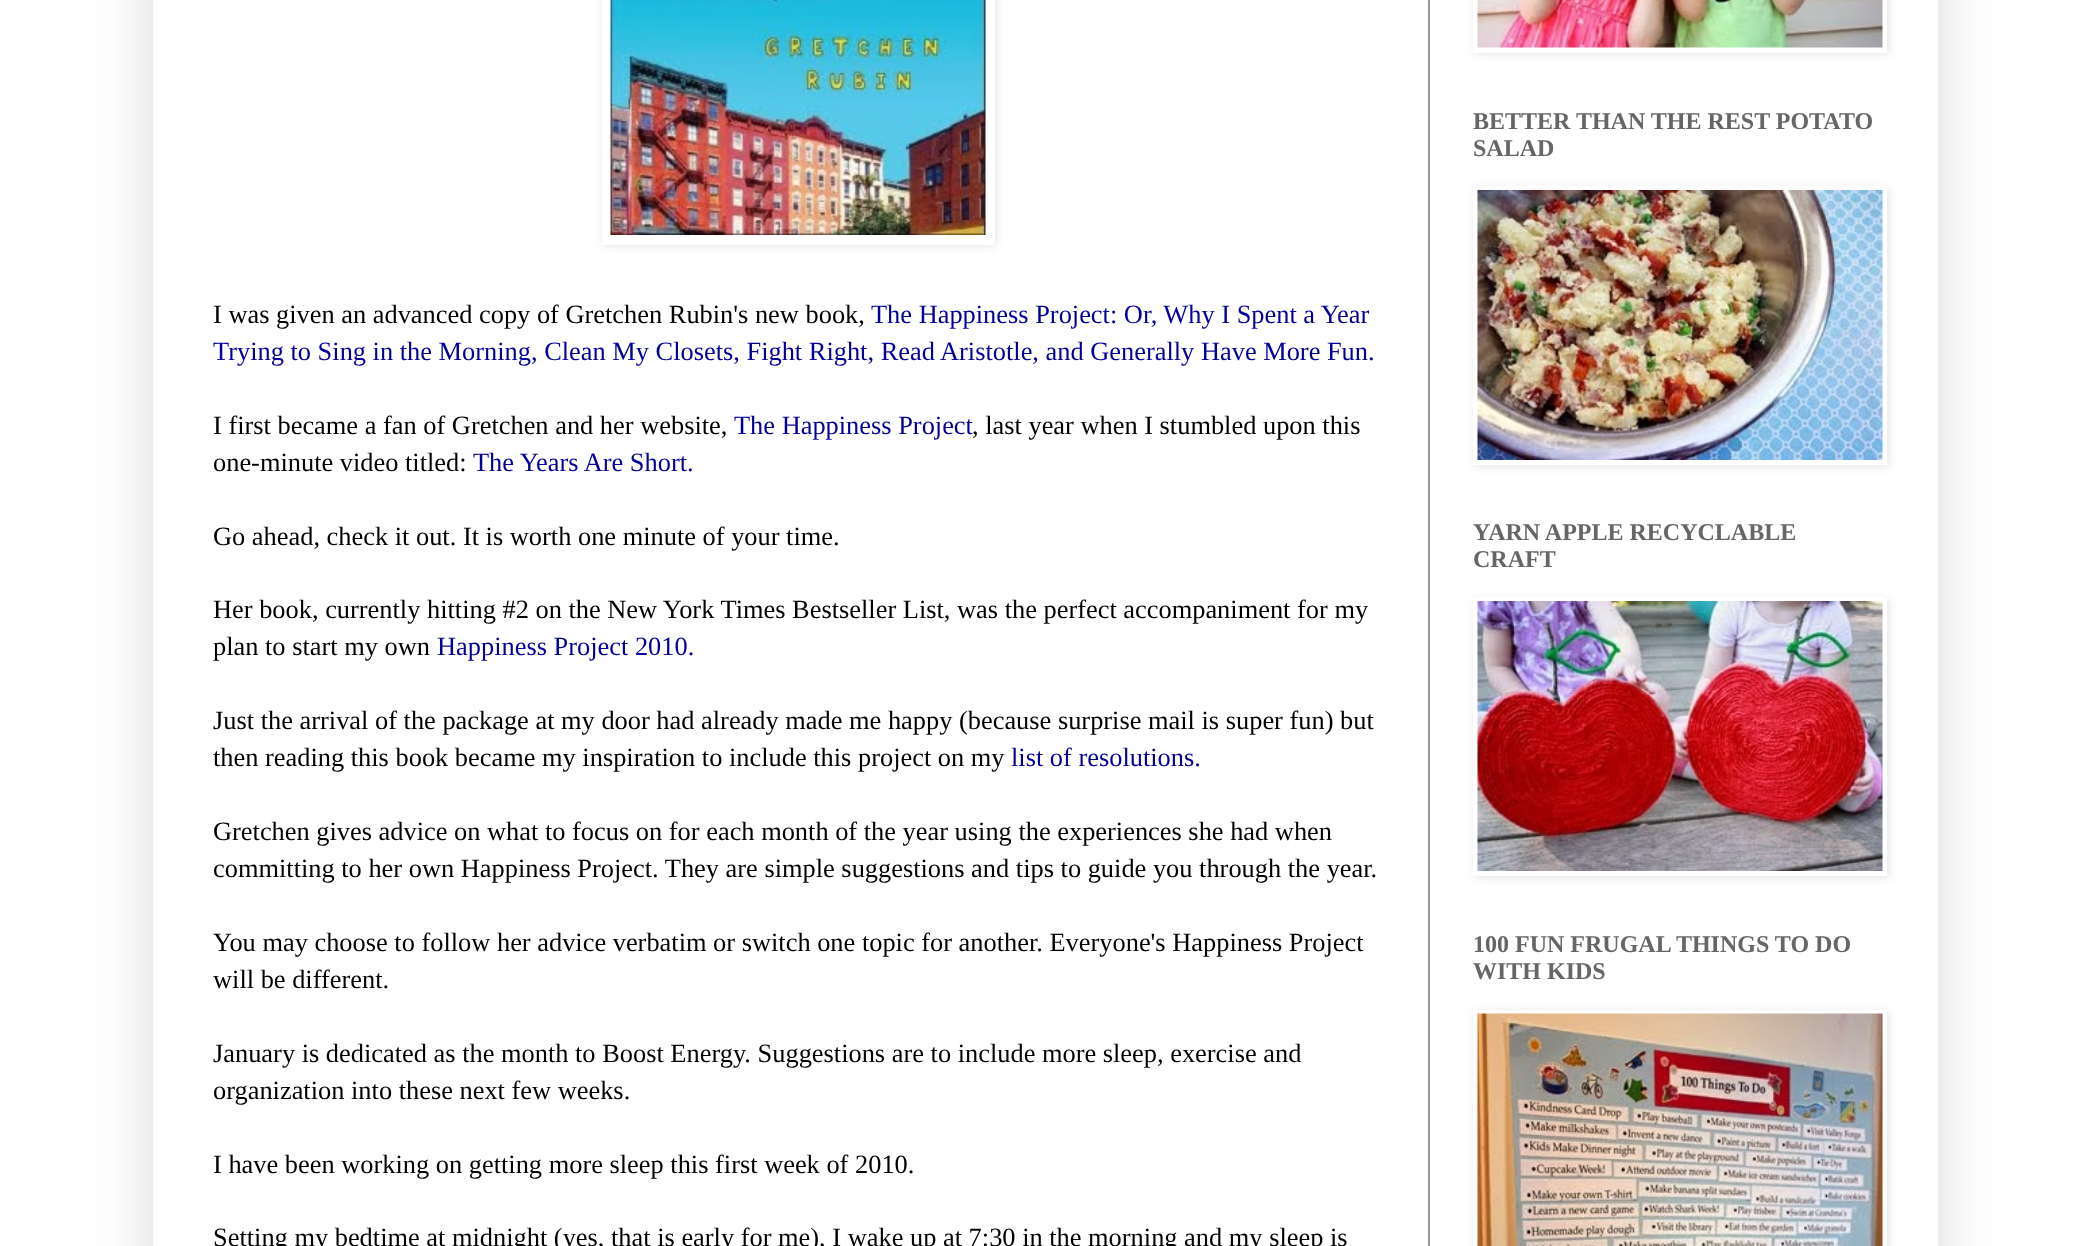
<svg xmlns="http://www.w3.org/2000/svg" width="2091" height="1246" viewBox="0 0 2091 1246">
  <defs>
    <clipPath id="clip1"><path d="M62 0H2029V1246H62ZM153-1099H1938V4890H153Z" clip-rule="evenodd"/></clipPath>
    <clipPath id="clip2"><path d="M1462 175H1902V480H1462ZM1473 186H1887V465H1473Z" clip-rule="evenodd"/></clipPath>
    <clipPath id="clip3"><path d="M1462 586H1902V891H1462ZM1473 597H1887V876H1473Z" clip-rule="evenodd"/></clipPath>
    <clipPath id="clip4"><path d="M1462 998H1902V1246H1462ZM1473 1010H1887V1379H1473Z" clip-rule="evenodd"/></clipPath>
  </defs>
  <rect width="100%" height="100%" fill="#fff"/>
  <g clip-path="url(#clip1)">
    <path d="M153 -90h1785v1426H153z" fill="#00000026" filter="blur(30px)"/>
  </g>
  <path d="M1428 0h2v1246H1428z" fill="#999"/>
  <path d="M603 -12h393v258H603z" fill="#0000001a" filter="blur(4px)"/>
  <path d="M602 0h393v245H602z" fill="#fff"/>
  <image x="610" y="0" width="376" height="235" href="img/1.png"/>
  <path d="M1475 -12h414v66H1475z" fill="#0000001a" filter="blur(4px)"/>
  <path d="M1473 0h414v53H1473z" fill="#fff"/>
  <image x="1477" y="0" width="406" height="48" href="img/2.png"/>
  <g clip-path="url(#clip2)">
    <path d="M1475 188h414v279H1475z" fill="#0000001a" filter="blur(4px)"/>
  </g>
  <image x="1477" y="190" width="406" height="270" href="img/3.png"/>
  <g clip-path="url(#clip3)">
    <path d="M1475 599h414v279H1475z" fill="#0000001a" filter="blur(4px)"/>
  </g>
  <image x="1477" y="601" width="406" height="270" href="img/4.png"/>
  <g clip-path="url(#clip4)">
    <path d="M1475 1011h414v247H1475z" fill="#0000001a" filter="blur(4px)"/>
  </g>
  <image x="1477" y="1013" width="406" height="233" href="img/5.png"/>
  <text x="213" y="323" font-family="Liberation Serif" font-size="26.4" fill="#000">I was given an advanced copy of Gretchen Rubin's new book,</text>
  <g font-family="Liberation Serif" font-size="26.4" fill="#009">
    <text x="871" y="323">The Happiness Project: Or, Why I Spent a Year</text>
    <text x="213" y="360">Trying to Sing in the Morning, Clean My Closets, Fight Right, Read Aristotle, and Generally Have More Fun</text>
    <text x="1368" y="360">.</text>
  </g>
  <text x="213" y="434" font-family="Liberation Serif" font-size="26.4" fill="#000">I first became a fan of Gretchen and her website,</text>
  <text x="734" y="434" font-family="Liberation Serif" font-size="26.4" fill="#009">The Happiness Project</text>
  <g font-family="Liberation Serif" font-size="26.4" fill="#000">
    <text x="972" y="434">, last year when I stumbled upon this</text>
    <text x="213" y="471">one-minute video titled:</text>
  </g>
  <text x="473" y="471" font-family="Liberation Serif" font-size="26.4" fill="#009">The Years Are Short.</text>
  <g font-family="Liberation Serif" font-size="26.4" fill="#000">
    <text x="213" y="545">Go ahead, check it out. It is worth one minute of your time.</text>
    <text x="213" y="618">Her book, currently hitting #2 on the New York Times Bestseller List, was the perfect accompaniment for my</text>
    <text x="213" y="655">plan to start my own</text>
  </g>
  <text x="437" y="655" font-family="Liberation Serif" font-size="26.4" fill="#009">Happiness Project 2010.</text>
  <g font-family="Liberation Serif" font-size="26.4" fill="#000">
    <text x="213" y="729">Just the arrival of the package at my door had already made me happy (because surprise mail is super fun) but</text>
    <text x="213" y="766">then reading this book became my inspiration to include this project on my</text>
  </g>
  <text x="1011" y="766" font-family="Liberation Serif" font-size="26.4" fill="#009">list of resolutions.</text>
  <g font-family="Liberation Serif" font-size="26.4" fill="#000">
    <text x="213" y="840">Gretchen gives advice on what to focus on for each month of the year using the experiences she had when</text>
    <text x="213" y="877">committing to her own Happiness Project. They are simple suggestions and tips to guide you through the year.</text>
    <text x="213" y="951">You may choose to follow her advice verbatim or switch one topic for another. Everyone's Happiness Project</text>
    <text x="213" y="988">will be different.</text>
    <text x="213" y="1062">January is dedicated as the month to Boost Energy. Suggestions are to include more sleep, exercise and</text>
    <text x="213" y="1099">organization into these next few weeks.</text>
    <text x="213" y="1173">I have been working on getting more sleep this first week of 2010.</text>
    <text x="213" y="1246">Setting my bedtime at midnight (yes, that is early for me), I wake up at 7:30 in the morning and my sleep is</text>
  </g>
  <g font-family="Liberation Serif" font-size="24" font-weight="bold" fill="#666">
    <text x="1473" y="129">BETTER THAN THE REST POTATO</text>
    <text x="1473" y="156">SALAD</text>
    <text x="1473" y="540">YARN APPLE RECYCLABLE</text>
    <text x="1473" y="567">CRAFT</text>
    <text x="1473" y="952">100 FUN FRUGAL THINGS TO DO</text>
    <text x="1473" y="979">WITH KIDS</text>
  </g>
</svg>
